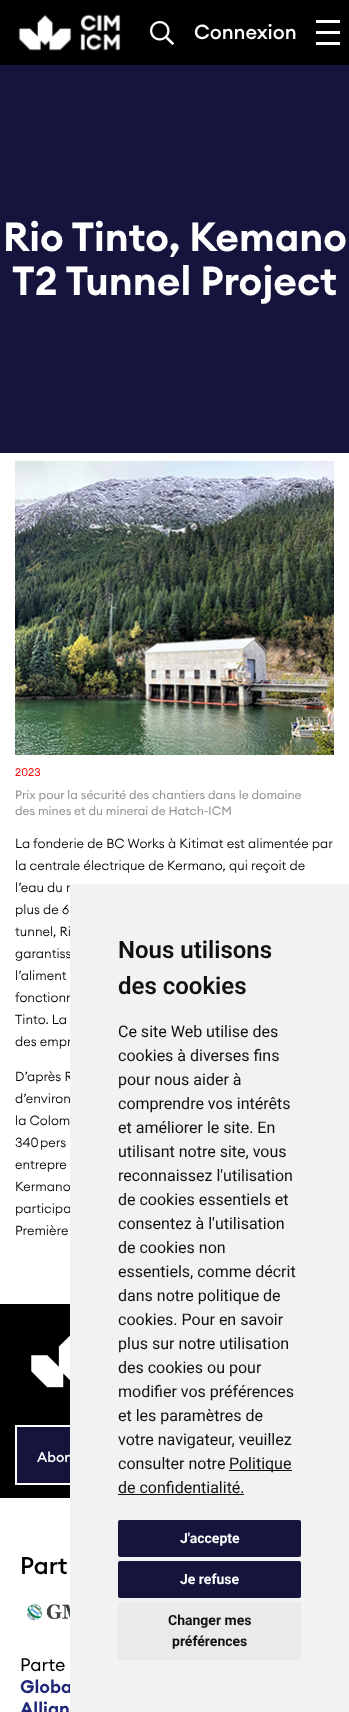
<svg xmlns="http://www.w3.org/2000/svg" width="349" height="1712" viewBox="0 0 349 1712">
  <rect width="100%" height="100%" fill="#fff"/>
  <path d="M0 0h349v65H0z" fill="#000"/>
  <image x="18" y="14" width="103" height="37" href="img/1.png"/>
  <image x="150" y="21" width="24" height="24" href="img/2.png"/>
  <path d="M316 20h24v3H316z" fill="#fff"/>
  <path d="M316 31h24v3H316z" fill="#fff"/>
  <path d="M316 42h24v3H316z" fill="#fff"/>
  <path d="M0 65h349v388H0z" fill="#14143c"/>
  <image x="15" y="461" width="319" height="294" href="img/3.png"/>
  <path d="M0 1304h70v194H0z" fill="#000"/>
  <image x="31" y="1335" width="39" height="53" href="img/4.png"/>
  <path d="M17 1427h53v56H17z" fill="#14143c"/>
  <path d="M16 1426h317v58H16z" fill="none" stroke="#fff" stroke-width="2"/>
  <image x="26" y="1604" width="44" height="17" href="img/5.png"/>
  <text x="194" y="39" font-family="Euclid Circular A" font-size="20" font-weight="500" fill="#fff">Connexion</text>
  <g font-family="Euclid Circular A" font-size="40" font-weight="600" fill="#fff">
    <text x="3" y="251">Rio Tinto, Kemano</text>
    <text x="12" y="295">T2 Tunnel Project</text>
  </g>
  <text x="15" y="776" font-family="Euclid Circular A" font-size="11" fill="#f00">2023</text>
  <g font-family="Euclid Circular A" font-size="12" fill="#929191">
    <text x="15" y="799">Prix pour la sécurité des chantiers dans le domaine</text>
    <text x="15" y="815">des mines et du minerai de Hatch-ICM</text>
  </g>
  <g font-family="Euclid Circular A" font-size="13" font-weight="300" fill="#000">
    <text x="15" y="848">La fonderie de BC Works à Kitimat est alimentée par</text>
    <text x="15" y="870">la centrale électrique de Kermano, qui reçoit de</text>
    <text x="15" y="892">l’eau du r</text>
    <text x="15" y="914">plus de 6</text>
    <text x="15" y="936">tunnel, Ri</text>
    <text x="15" y="958">garantiss</text>
    <text x="15" y="980">l’aliment</text>
    <text x="15" y="1002">fonctionn</text>
    <text x="15" y="1024">Tinto. La</text>
    <text x="15" y="1046">des empr</text>
    <text x="15" y="1081">D’après R</text>
    <text x="15" y="1103">d’environ</text>
    <text x="15" y="1125">la Colom</text>
    <text x="15" y="1147">340 pers</text>
    <text x="15" y="1169">entrepre</text>
    <text x="15" y="1191">Kermano</text>
    <text x="15" y="1213">participa</text>
    <text x="15" y="1235">Première</text>
  </g>
  <text x="37" y="1462" font-family="Euclid Circular A" font-size="14" font-weight="500" fill="#fff">Abon</text>
  <text x="20" y="1574" font-family="Euclid Circular A" font-size="24" font-weight="500" fill="#000">Part</text>
  <text x="20" y="1671" font-family="Euclid Circular A" font-size="18" fill="#000">Parte</text>
  <g font-family="Euclid Circular A" font-size="18" font-weight="600" fill="#212878">
    <text x="20" y="1693">Globa</text>
    <text x="20" y="1715">Allian</text>
  </g>
  <path d="M70 884h279v828H70z" fill="#f2f2f2"/>
  <g font-family="Roboto" font-size="24" font-weight="600" fill="#111">
    <text x="118" y="958">Nous utilisons</text>
    <text x="118" y="994">des cookies</text>
  </g>
  <g font-family="Roboto" font-size="16" fill="#111">
    <text x="118" y="1037">Ce site Web utilise des</text>
    <text x="118" y="1061">cookies à diverses fins</text>
    <text x="118" y="1085">pour nous aider à</text>
    <text x="118" y="1109">comprendre vos intérêts</text>
    <text x="118" y="1133">et améliorer le site. En</text>
    <text x="118" y="1157">utilisant notre site, vous</text>
    <text x="118" y="1181">reconnaissez l'utilisation</text>
    <text x="118" y="1205">de cookies essentiels et</text>
    <text x="118" y="1229">consentez à l'utilisation</text>
    <text x="118" y="1253">de cookies non</text>
    <text x="118" y="1277">essentiels, comme décrit</text>
    <text x="118" y="1301">dans notre politique de</text>
    <text x="118" y="1325">cookies. Pour en savoir</text>
    <text x="118" y="1349">plus sur notre utilisation</text>
    <text x="118" y="1373">des cookies ou pour</text>
    <text x="118" y="1397">modifier vos préférences</text>
    <text x="118" y="1421">et les paramètres de</text>
    <text x="118" y="1445">votre navigateur, veuillez</text>
    <text x="118" y="1469">consulter notre</text>
  </g>
  <path d="M229 1470h63v1H229z" fill="#111"/>
  <g font-family="Roboto" font-size="16" fill="#111">
    <text x="229" y="1469">Politique</text>
    <text x="118" y="1493">de confidentialité.</text>
  </g>
  <path d="M118 1494h126v1H118z" fill="#111"/>
  <rect x="118" y="1520" width="183" height="37" rx="2" fill="#14143c"/>
  <text x="180" y="1543" font-family="Roboto" font-size="14" font-weight="bold" fill="#fff">J'accepte</text>
  <rect x="118" y="1561" width="183" height="37" rx="2" fill="#14143c"/>
  <text x="180" y="1584" font-family="Roboto" font-size="14" font-weight="bold" fill="#fff">Je refuse</text>
  <rect x="118" y="1602" width="183" height="58" rx="2" fill="#eaeaea"/>
  <g font-family="Roboto" font-size="14" font-weight="bold" fill="#111">
    <text x="168" y="1625">Changer mes</text>
    <text x="172" y="1646">préférences</text>
  </g>
</svg>
